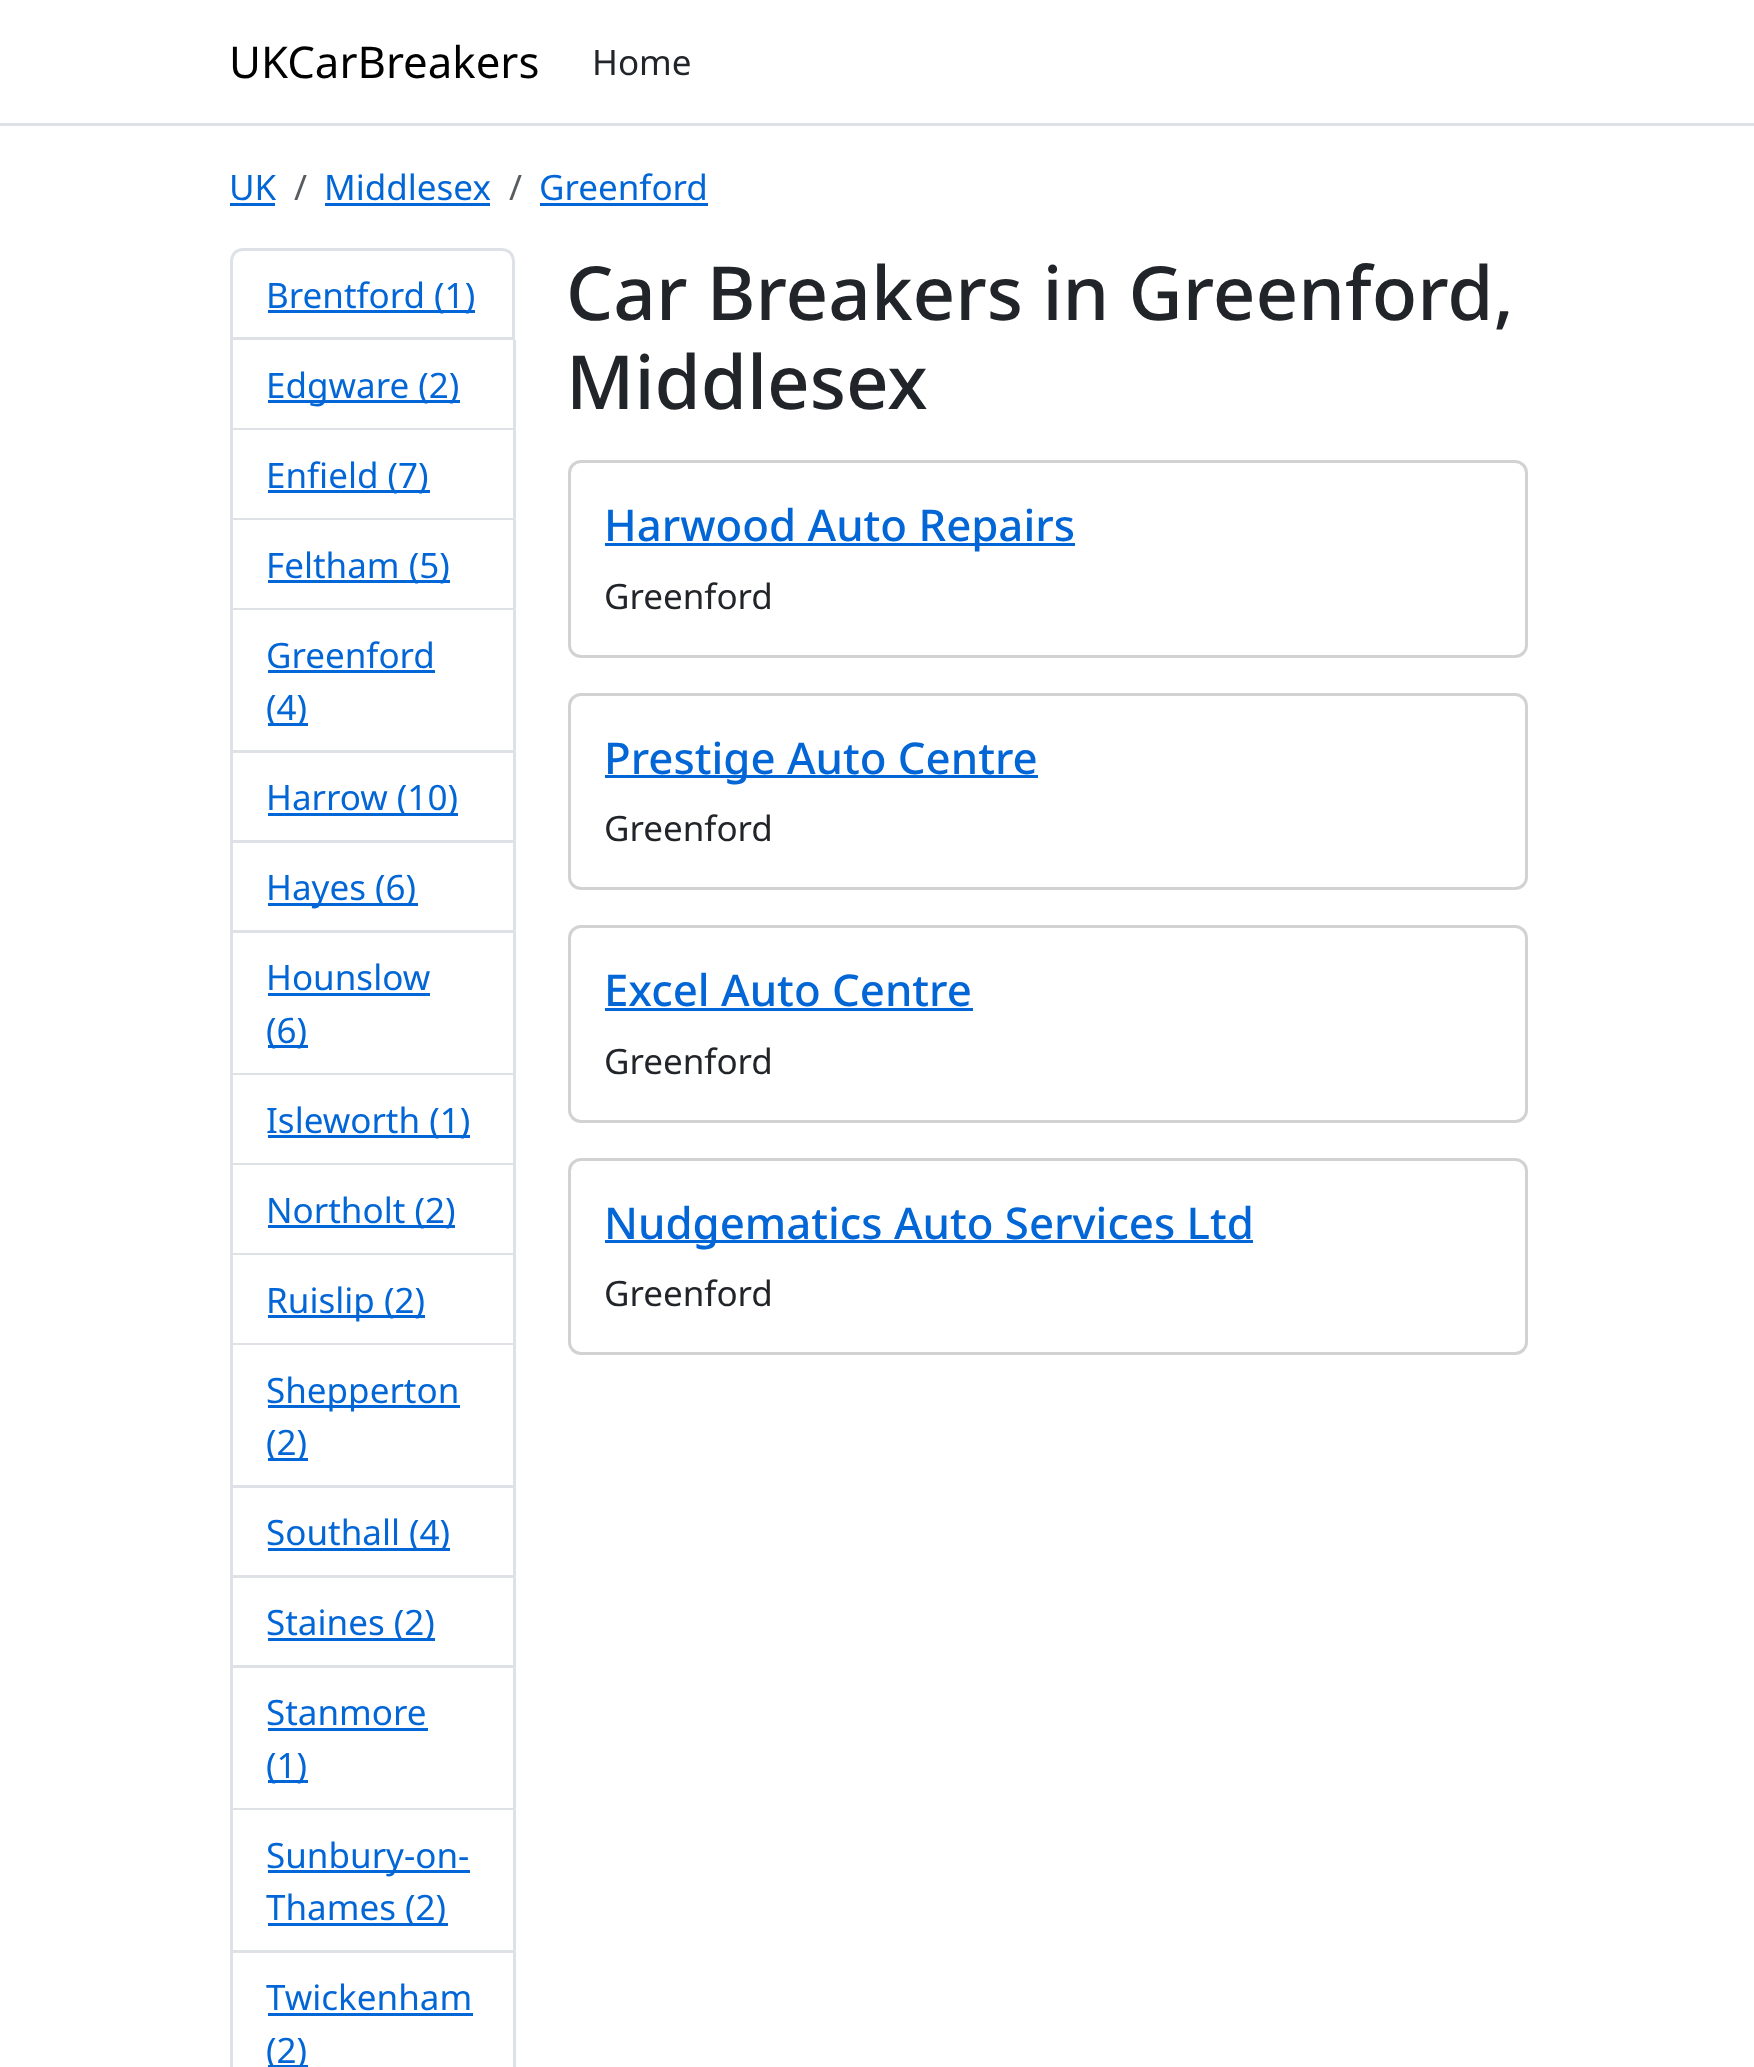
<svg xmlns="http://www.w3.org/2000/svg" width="1754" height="2067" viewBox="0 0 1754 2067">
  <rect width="100%" height="100%" fill="#fff"/>
  <path d="M0 123h1754v3H0z" fill="#dee2e6"/>
  <path d="M230 203h45v3H230z" fill="#0366d6"/>
  <path d="M325 203h165v3H325z" fill="#0366d6"/>
  <path d="M540 203h168v3H540z" fill="#0366d6"/>
  <path d="M243 249.5H502C508.5 249.5 513.5 254.5 513.5 261V338.5H231.5V261C231.5 254.5 236.5 249.5 243 249.5Z" fill="none" stroke="#dee2e6" stroke-width="3"/>
  <path d="M268 310h207v3H268z" fill="#0366d6"/>
  <path d="M513 340h3v1727H513z" fill="#dee2e6"/>
  <path d="M230 428h285v2H230z" fill="#dee2e6"/>
  <path d="M230 340h3v90H230z" fill="#dee2e6"/>
  <path d="M268 400h192v3H268z" fill="#0366d6"/>
  <path d="M230 518h285v2H230z" fill="#dee2e6"/>
  <path d="M230 430h3v90H230z" fill="#dee2e6"/>
  <path d="M268 490h162v3H268z" fill="#0366d6"/>
  <path d="M230 608h285v2H230z" fill="#dee2e6"/>
  <path d="M230 520h3v90H230z" fill="#dee2e6"/>
  <path d="M268 580h182v3H268z" fill="#0366d6"/>
  <path d="M230 750h285v3H230z" fill="#dee2e6"/>
  <path d="M230 610h3v143H230z" fill="#dee2e6"/>
  <path d="M268 670h167v3H268z" fill="#0366d6"/>
  <path d="M268 723h40v3H268z" fill="#0366d6"/>
  <path d="M230 840h285v3H230z" fill="#dee2e6"/>
  <path d="M230 753h3v90H230z" fill="#dee2e6"/>
  <path d="M268 813h190v3H268z" fill="#0366d6"/>
  <path d="M230 930h285v3H230z" fill="#dee2e6"/>
  <path d="M230 843h3v90H230z" fill="#dee2e6"/>
  <path d="M268 903h150v3H268z" fill="#0366d6"/>
  <path d="M230 1073h285v2H230z" fill="#dee2e6"/>
  <path d="M230 933h3v142H230z" fill="#dee2e6"/>
  <path d="M268 993h162v3H268z" fill="#0366d6"/>
  <path d="M268 1045h40v3H268z" fill="#0366d6"/>
  <path d="M230 1163h285v2H230z" fill="#dee2e6"/>
  <path d="M230 1075h3v90H230z" fill="#dee2e6"/>
  <path d="M268 1135h202v3H268z" fill="#0366d6"/>
  <path d="M230 1253h285v2H230z" fill="#dee2e6"/>
  <path d="M230 1165h3v90H230z" fill="#dee2e6"/>
  <path d="M268 1225h187v3H268z" fill="#0366d6"/>
  <path d="M230 1343h285v2H230z" fill="#dee2e6"/>
  <path d="M230 1255h3v90H230z" fill="#dee2e6"/>
  <path d="M268 1315h157v3H268z" fill="#0366d6"/>
  <path d="M230 1485h285v3H230z" fill="#dee2e6"/>
  <path d="M230 1345h3v143H230z" fill="#dee2e6"/>
  <path d="M268 1405h192v3H268z" fill="#0366d6"/>
  <path d="M268 1458h40v3H268z" fill="#0366d6"/>
  <path d="M230 1575h285v3H230z" fill="#dee2e6"/>
  <path d="M230 1488h3v90H230z" fill="#dee2e6"/>
  <path d="M268 1548h182v3H268z" fill="#0366d6"/>
  <path d="M230 1665h285v3H230z" fill="#dee2e6"/>
  <path d="M230 1578h3v90H230z" fill="#dee2e6"/>
  <path d="M268 1638h167v3H268z" fill="#0366d6"/>
  <path d="M230 1808h285v2H230z" fill="#dee2e6"/>
  <path d="M230 1668h3v142H230z" fill="#dee2e6"/>
  <path d="M268 1728h160v3H268z" fill="#0366d6"/>
  <path d="M268 1780h40v3H268z" fill="#0366d6"/>
  <path d="M230 1950h285v3H230z" fill="#dee2e6"/>
  <path d="M230 1810h3v257H230z" fill="#dee2e6"/>
  <path d="M268 1870h202v3H268z" fill="#0366d6"/>
  <path d="M268 1923h180v3H268z" fill="#0366d6"/>
  <path d="M268 2013h205v3H268z" fill="#0366d6"/>
  <path d="M268 2065h40v2H268z" fill="#0366d6"/>
  <rect x="569.5" y="461.5" width="957" height="195" rx="11.5" fill="none" stroke="#d2d2d2" stroke-width="3"/>
  <path d="M605 543h470v3H605z" fill="#0366d6"/>
  <rect x="569.5" y="694.5" width="957" height="194" rx="11.5" fill="none" stroke="#d2d2d2" stroke-width="3"/>
  <path d="M605 775h433v3H605z" fill="#0366d6"/>
  <rect x="569.5" y="926.5" width="957" height="195" rx="11.5" fill="none" stroke="#d2d2d2" stroke-width="3"/>
  <path d="M605 1008h368v3H605z" fill="#0366d6"/>
  <rect x="569.5" y="1159.5" width="957" height="194" rx="11.5" fill="none" stroke="#d2d2d2" stroke-width="3"/>
  <path d="M605 1240h648v3H605z" fill="#0366d6"/>
  <text x="229" y="78" font-family="Noto Sans" font-size="43.75" fill="#000">UKCarBreakers</text>
  <text x="592" y="75" font-family="Noto Sans" font-size="35" fill="#212529">Home</text>
  <text x="229" y="200" font-family="Noto Sans" font-size="35" fill="#0366d6">UK</text>
  <text x="294" y="200" font-family="Noto Sans" font-size="35" fill="#595c5f">/</text>
  <text x="324" y="200" font-family="Noto Sans" font-size="35" fill="#0366d6">Middlesex</text>
  <text x="509" y="200" font-family="Noto Sans" font-size="35" fill="#595c5f">/</text>
  <g font-family="Noto Sans" font-size="35" fill="#0366d6">
    <text x="539" y="200">Greenford</text>
    <text x="266" y="308">Brentford (1)</text>
    <text x="266" y="398">Edgware (2)</text>
    <text x="266" y="488">Enfield (7)</text>
    <text x="266" y="578">Feltham (5)</text>
    <text x="266" y="668">Greenford</text>
    <text x="266" y="720">(4)</text>
    <text x="266" y="810">Harrow (10)</text>
    <text x="266" y="900">Hayes (6)</text>
    <text x="266" y="990">Hounslow</text>
    <text x="266" y="1043">(6)</text>
    <text x="266" y="1133">Isleworth (1)</text>
    <text x="266" y="1223">Northolt (2)</text>
    <text x="266" y="1313">Ruislip (2)</text>
    <text x="266" y="1403">Shepperton</text>
    <text x="266" y="1455">(2)</text>
    <text x="266" y="1545">Southall (4)</text>
    <text x="266" y="1635">Staines (2)</text>
    <text x="266" y="1725">Stanmore</text>
    <text x="266" y="1778">(1)</text>
    <text x="266" y="1868">Sunbury-on-</text>
    <text x="266" y="1920">Thames (2)</text>
    <text x="266" y="2010">Twickenham</text>
    <text x="266" y="2063">(2)</text>
  </g>
  <g font-family="Noto Sans" font-size="74.5" font-weight="500" fill="#212529">
    <text x="566" y="320">Car Breakers in Greenford,</text>
    <text x="566" y="409">Middlesex</text>
  </g>
  <text x="604" y="541" font-family="Noto Sans" font-size="43.75" font-weight="500" fill="#0366d6">Harwood Auto Repairs</text>
  <text x="604" y="609" font-family="Noto Sans" font-size="35" fill="#212529">Greenford</text>
  <text x="604" y="774" font-family="Noto Sans" font-size="43.75" font-weight="500" fill="#0366d6">Prestige Auto Centre</text>
  <text x="604" y="841" font-family="Noto Sans" font-size="35" fill="#212529">Greenford</text>
  <text x="604" y="1006" font-family="Noto Sans" font-size="43.75" font-weight="500" fill="#0366d6">Excel Auto Centre</text>
  <text x="604" y="1074" font-family="Noto Sans" font-size="35" fill="#212529">Greenford</text>
  <text x="604" y="1239" font-family="Noto Sans" font-size="43.75" font-weight="500" fill="#0366d6">Nudgematics Auto Services Ltd</text>
  <text x="604" y="1306" font-family="Noto Sans" font-size="35" fill="#212529">Greenford</text>
</svg>
